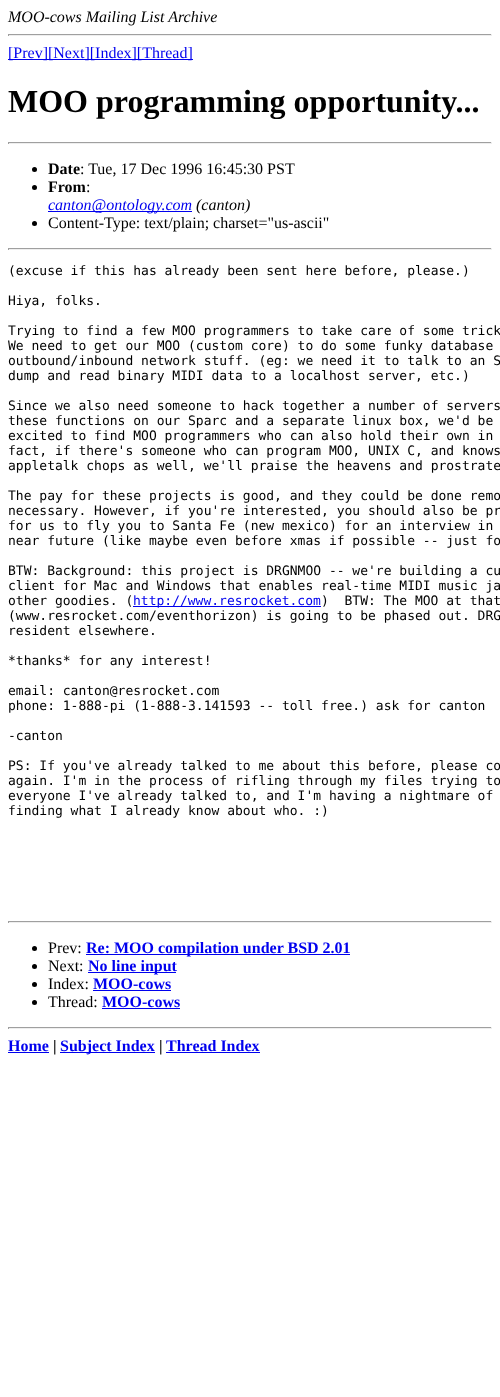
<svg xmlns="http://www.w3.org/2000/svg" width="500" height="1397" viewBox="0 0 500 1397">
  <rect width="100%" height="100%" fill="#fff"/>
  <path d="M8 34h484v1H8z" fill="#9f9f9f"/>
  <path d="M491 34h1v2H491z" fill="#eee"/>
  <path d="M8 35h484v1H8z" fill="#eee"/>
  <path d="M8 34h1v2H8z" fill="#9f9f9f"/>
  <path d="M8 59h185v1H8z" fill="#00e"/>
  <path d="M8 142h484v1H8z" fill="#9f9f9f"/>
  <path d="M491 142h1v2H491z" fill="#eee"/>
  <path d="M8 143h484v1H8z" fill="#eee"/>
  <path d="M8 142h1v2H8z" fill="#9f9f9f"/>
  <circle cx="34.5" cy="169.5" r="2.5" fill="#000"/>
  <circle cx="34.5" cy="187.5" r="2.5" fill="#000"/>
  <path d="M48 211h144v1H48z" fill="#00e"/>
  <circle cx="34.5" cy="223.5" r="2.5" fill="#000"/>
  <path d="M8 248h484v1H8z" fill="#9f9f9f"/>
  <path d="M491 248h1v2H491z" fill="#eee"/>
  <path d="M8 249h484v1H8z" fill="#eee"/>
  <path d="M8 248h1v2H8z" fill="#9f9f9f"/>
  <path d="M133 606h188v1H133z" fill="#00e"/>
  <path d="M8 921h484v1H8z" fill="#9f9f9f"/>
  <path d="M491 921h1v2H491z" fill="#eee"/>
  <path d="M8 922h484v1H8z" fill="#eee"/>
  <path d="M8 921h1v2H8z" fill="#9f9f9f"/>
  <circle cx="34.5" cy="948.5" r="2.5" fill="#000"/>
  <path d="M86 954h264v1H86z" fill="#00e"/>
  <circle cx="34.5" cy="966.5" r="2.5" fill="#000"/>
  <path d="M88 972h88v1H88z" fill="#00e"/>
  <circle cx="34.5" cy="984.5" r="2.5" fill="#000"/>
  <path d="M93 990h78v1H93z" fill="#00e"/>
  <circle cx="34.5" cy="1002.5" r="2.5" fill="#000"/>
  <path d="M102 1008h78v1H102z" fill="#00e"/>
  <path d="M8 1027h484v1H8z" fill="#9f9f9f"/>
  <path d="M491 1027h1v2H491z" fill="#eee"/>
  <path d="M8 1028h484v1H8z" fill="#eee"/>
  <path d="M8 1027h1v2H8z" fill="#9f9f9f"/>
  <path d="M8 1052h41v1H8z" fill="#00e"/>
  <path d="M60 1052h95v1H60z" fill="#00e"/>
  <path d="M166 1052h94v1H166z" fill="#00e"/>
  <text x="8" y="22" font-family="Liberation Serif" font-size="16" font-style="italic" fill="#000">MOO-cows Mailing List Archive</text>
  <text x="8" y="58" font-family="Liberation Serif" font-size="16" fill="#00e">[Prev][Next][Index][Thread]</text>
  <text x="8" y="112" font-family="Liberation Serif" font-size="32" font-weight="bold" fill="#000">MOO programming opportunity...</text>
  <text x="48" y="174" font-family="Liberation Serif" font-size="16" font-weight="bold" fill="#000">Date</text>
  <text x="80" y="174" font-family="Liberation Serif" font-size="16" fill="#000">: Tue, 17 Dec 1996 16:45:30 PST</text>
  <text x="48" y="192" font-family="Liberation Serif" font-size="16" font-weight="bold" fill="#000">From</text>
  <text x="86" y="192" font-family="Liberation Serif" font-size="16" fill="#000">:</text>
  <text x="48" y="210" font-family="Liberation Serif" font-size="16" font-style="italic" fill="#00e">canton@ontology.com</text>
  <text x="196" y="210" font-family="Liberation Serif" font-size="16" font-style="italic" fill="#000">(canton)</text>
  <text x="48" y="228" font-family="Liberation Serif" font-size="16" fill="#000">Content-Type: text/plain; charset="us-ascii"</text>
  <g font-family="DejaVu Sans Mono" font-size="13" fill="#000">
    <text x="8" y="275">(excuse if this has already been sent here before, please.)</text>
    <text x="8" y="305">Hiya, folks.</text>
    <text x="8" y="335">Trying to find a few MOO programmers to take care of some trick</text>
    <text x="8" y="350">We need to get our MOO (custom core) to do some funky database</text>
    <text x="8" y="365">outbound/inbound network stuff. (eg: we need it to talk to an S</text>
    <text x="8" y="380">dump and read binary MIDI data to a localhost server, etc.)</text>
    <text x="8" y="410">Since we also need someone to hack together a number of servers</text>
    <text x="8" y="425">these functions on our Sparc and a separate linux box, we'd be</text>
    <text x="8" y="440">excited to find MOO programmers who can also hold their own in</text>
    <text x="8" y="455">fact, if there's someone who can program MOO, UNIX C, and knows</text>
    <text x="8" y="470">appletalk chops as well, we'll praise the heavens and prostrate</text>
    <text x="8" y="500">The pay for these projects is good, and they could be done remo</text>
    <text x="8" y="515">necessary. However, if you're interested, you should also be pr</text>
    <text x="8" y="530">for us to fly you to Santa Fe (new mexico) for an interview in</text>
    <text x="8" y="545">near future (like maybe even before xmas if possible -- just fo</text>
    <text x="8" y="575">BTW: Background: this project is DRGNMOO -- we're building a cu</text>
    <text x="8" y="590">client for Mac and Windows that enables real-time MIDI music ja</text>
    <text x="8" y="605">other goodies. (</text>
  </g>
  <text x="133" y="605" font-family="DejaVu Sans Mono" font-size="13" fill="#00e">http://www.resrocket.com</text>
  <g font-family="DejaVu Sans Mono" font-size="13" fill="#000">
    <text x="321" y="605" xml:space="preserve">)  BTW: The MOO at that</text>
    <text x="8" y="620">(www.resrocket.com/eventhorizon) is going to be phased out. DRG</text>
    <text x="8" y="635">resident elsewhere.</text>
    <text x="8" y="665">*thanks* for any interest!</text>
    <text x="8" y="695">email: canton@resrocket.com</text>
    <text x="8" y="710">phone: 1-888-pi (1-888-3.141593 -- toll free.) ask for canton</text>
    <text x="8" y="740">-canton</text>
    <text x="8" y="770">PS: If you've already talked to me about this before, please co</text>
    <text x="8" y="785">again. I'm in the process of rifling through my files trying to</text>
    <text x="8" y="800">everyone I've already talked to, and I'm having a nightmare of</text>
    <text x="8" y="815">finding what I already know about who. :)</text>
  </g>
  <text x="48" y="953" font-family="Liberation Serif" font-size="16" fill="#000">Prev:</text>
  <text x="86" y="953" font-family="Liberation Serif" font-size="16" font-weight="bold" fill="#00e">Re: MOO compilation under BSD 2.01</text>
  <text x="48" y="971" font-family="Liberation Serif" font-size="16" fill="#000">Next:</text>
  <text x="88" y="971" font-family="Liberation Serif" font-size="16" font-weight="bold" fill="#00e">No line input</text>
  <text x="48" y="989" font-family="Liberation Serif" font-size="16" fill="#000">Index:</text>
  <text x="93" y="989" font-family="Liberation Serif" font-size="16" font-weight="bold" fill="#00e">MOO-cows</text>
  <text x="48" y="1007" font-family="Liberation Serif" font-size="16" fill="#000">Thread:</text>
  <g font-family="Liberation Serif" font-size="16" font-weight="bold" fill="#00e">
    <text x="102" y="1007">MOO-cows</text>
    <text x="8" y="1051">Home</text>
  </g>
  <text x="53" y="1051" font-family="Liberation Serif" font-size="16" font-weight="bold" fill="#000">|</text>
  <text x="60" y="1051" font-family="Liberation Serif" font-size="16" font-weight="bold" fill="#00e">Subject Index</text>
  <text x="159" y="1051" font-family="Liberation Serif" font-size="16" font-weight="bold" fill="#000">|</text>
  <text x="166" y="1051" font-family="Liberation Serif" font-size="16" font-weight="bold" fill="#00e">Thread Index</text>
</svg>
